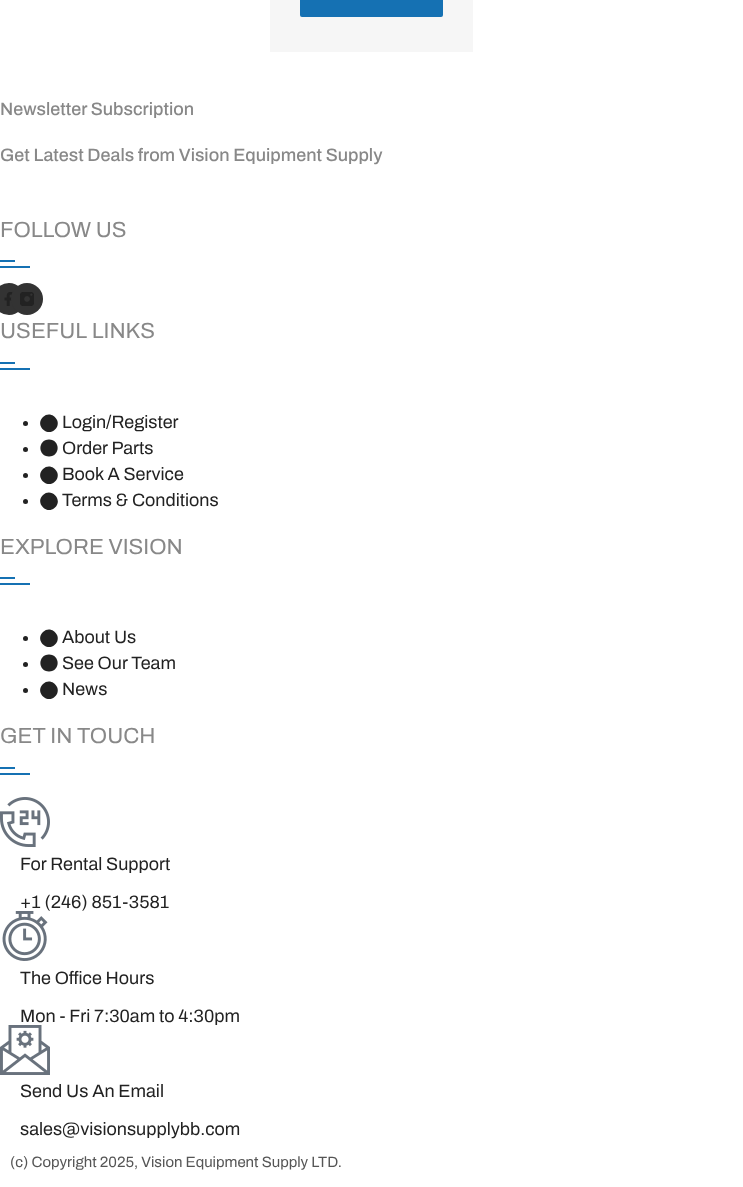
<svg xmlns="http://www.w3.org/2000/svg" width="743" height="1187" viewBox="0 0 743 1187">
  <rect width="100%" height="100%" fill="#fff"/>
  <path d="M270 0h203v52H270z" fill="#f6f6f6"/>
  <rect x="300" y="-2" width="143" height="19" rx="2" fill="#1571b3"/>
  <path d="M0 266H30V268H0ZM0 260H15V262H0Z" fill="#1571b3"/>
  <circle cx="9" cy="299" r="16" fill="#333"/>
  <image x="4" y="292" width="9" height="14" href="img/1.png"/>
  <circle cx="27" cy="299" r="16" fill="#333"/>
  <image x="20" y="292" width="14" height="14" href="img/2.png"/>
  <path d="M0 368H30V370H0ZM0 362H15V364H0Z" fill="#1571b3"/>
  <circle cx="25.5" cy="423.5" r="2.5" fill="#222"/>
  <path d="M43 417C51 409 63.5 421.5 55 429.5C47 437.5 34.5 425 43 417Z" fill="#222"/>
  <circle cx="25.5" cy="449.5" r="2.5" fill="#222"/>
  <path d="M49 439.5C37.5 439.5 37.5 456.5 49 456.5C60.5 456.5 60.5 439.5 49 439.5Z" fill="#222"/>
  <circle cx="25.5" cy="475.5" r="2.5" fill="#222"/>
  <path d="M43 469C51 461 63.5 473.5 55 481.5C47 489.5 34.5 477 43 469Z" fill="#222"/>
  <circle cx="25.5" cy="501.5" r="2.5" fill="#222"/>
  <path d="M43 495C51 487 63.5 499.5 55 507.5C47 515.5 34.5 503 43 495Z" fill="#222"/>
  <path d="M0 583H30V585H0ZM0 577H15V579H0Z" fill="#1571b3"/>
  <circle cx="25.5" cy="638.5" r="2.5" fill="#222"/>
  <path d="M43 632C51 624 63.5 636.5 55 644.5C47 652.5 34.5 640 43 632Z" fill="#222"/>
  <circle cx="25.5" cy="664.5" r="2.5" fill="#222"/>
  <path d="M49 654.5C37.5 654.5 37.5 671.5 49 671.5C60.5 671.5 60.5 654.5 49 654.5Z" fill="#222"/>
  <circle cx="25.5" cy="690.5" r="2.5" fill="#222"/>
  <path d="M43 684C51 676 63.5 688.5 55 696.5C47 704.5 34.5 692 43 684Z" fill="#222"/>
  <path d="M0 773H30V775H0ZM0 767H15V769H0Z" fill="#1571b3"/>
  <image x="0" y="797" width="50" height="50" href="img/3.png"/>
  <image x="2" y="911" width="46" height="50" href="img/4.png"/>
  <g font-family="Archivo" font-size="18" font-weight="500" fill="#888">
    <text x="0" y="115">Newsletter Subscription</text>
    <text x="0" y="161">Get Latest Deals from Vision Equipment Supply</text>
  </g>
  <g font-family="Archivo" font-size="22" fill="#888">
    <text x="0" y="237">FOLLOW US</text>
    <text x="0" y="338">USEFUL LINKS</text>
  </g>
  <g font-family="Archivo" font-size="18" fill="#222">
    <text x="62" y="428">Login/Register</text>
    <text x="62" y="454">Order Parts</text>
    <text x="62" y="480">Book A Service</text>
    <text x="62" y="506">Terms &amp; Conditions</text>
  </g>
  <text x="0" y="554" font-family="Archivo" font-size="22" fill="#888">EXPLORE VISION</text>
  <g font-family="Archivo" font-size="18" fill="#222">
    <text x="62" y="643">About Us</text>
    <text x="62" y="669">See Our Team</text>
    <text x="62" y="695">News</text>
  </g>
  <text x="0" y="743" font-family="Archivo" font-size="22" fill="#888">GET IN TOUCH</text>
  <g font-family="Archivo" font-size="18" fill="#222">
    <text x="20" y="870">For Rental Support</text>
    <text x="20" y="908">+1 (246) 851-3581</text>
    <text x="20" y="984">The Office Hours</text>
    <text x="20" y="1022">Mon - Fri 7:30am to 4:30pm</text>
  </g>
  <image x="0" y="1025" width="50" height="50" href="img/5.png"/>
  <g font-family="Archivo" font-size="18" fill="#222">
    <text x="20" y="1097">Send Us An Email</text>
    <text x="20" y="1135">sales@visionsupplybb.com</text>
  </g>
  <text x="10" y="1167" font-family="Archivo" font-size="15" fill="#555">(c) Copyright 2025, Vision Equipment Supply LTD.</text>
</svg>
